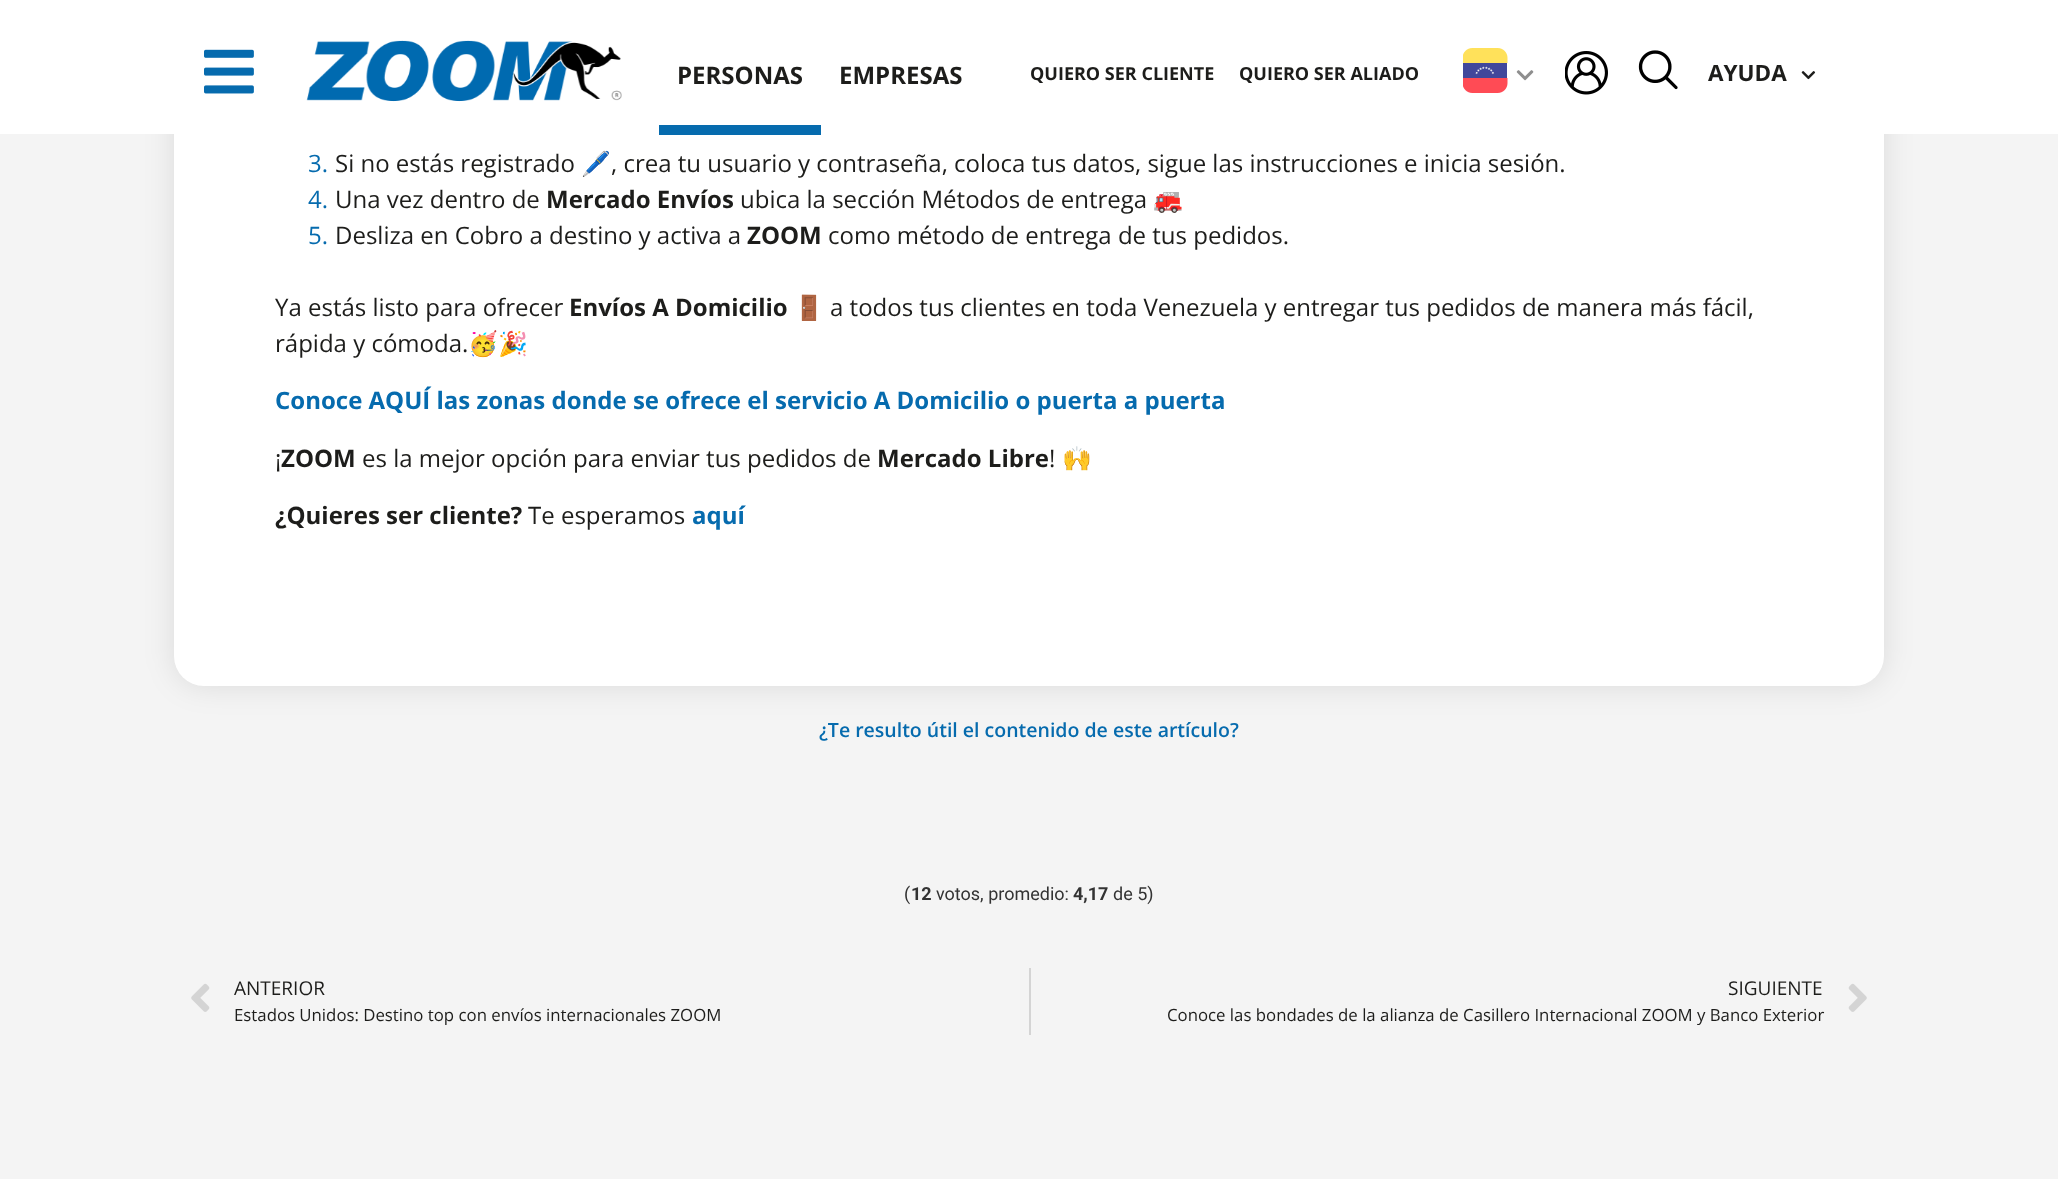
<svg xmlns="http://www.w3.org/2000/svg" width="2058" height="1179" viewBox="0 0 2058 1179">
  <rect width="100%" height="100%" fill="#f4f4f4"/>
  <rect x="174" y="-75" width="1710" height="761" rx="30" fill="#0000001a" filter="blur(15px)"/>
  <rect x="174" y="-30" width="1710" height="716" rx="30" fill="#fff"/>
  <path d="M0 0h2058v134H0z" fill="#fff"/>
  <image x="204" y="49" width="50" height="45" href="img/1.png"/>
  <image x="306" y="40" width="316" height="62" href="img/2.png"/>
  <path d="M659 125h162v10H659z" fill="#066bae"/>
  <image x="1463" y="48" width="45" height="45" href="img/3.png"/>
  <image x="1516" y="70" width="18" height="11" href="img/4.png"/>
  <image x="1565" y="51" width="43" height="44" href="img/5.png"/>
  <image x="1638" y="50" width="40" height="40" href="img/6.png"/>
  <image x="1801" y="71" width="15" height="9" href="img/7.png"/>
  <image x="191" y="983" width="19" height="29" href="img/8.png"/>
  <path d="M1029 968h2v67H1029z" fill="#d4d4d4"/>
  <image x="1848" y="983" width="19" height="29" href="img/9.png"/>
  <g font-family="Open Sans" font-size="24" font-weight="bold" fill="#1d1d1b">
    <text x="677" y="84">PERSONAS</text>
    <text x="839" y="84">EMPRESAS</text>
  </g>
  <g font-family="Open Sans" font-size="18" font-weight="bold" fill="#1d1d1b">
    <text x="1030" y="80">QUIERO SER CLIENTE</text>
    <text x="1239" y="80">QUIERO SER ALIADO</text>
  </g>
  <text x="1708" y="81" font-family="Open Sans" font-size="22.5" font-weight="bold" fill="#1d1d1b">AYUDA</text>
  <text x="308" y="172" font-family="Open Sans" font-size="24" fill="#066bae">3.</text>
  <text x="335" y="172" font-family="Open Sans" font-size="24" fill="#1d1d1b">Si no estás registrado</text>
  <text x="581" y="172" font-family="Noto Color Emoji" font-size="24" fill="#1d1d1b">🖊️</text>
  <text x="611" y="172" font-family="Open Sans" font-size="24" fill="#1d1d1b">, crea tu usuario y contraseña, coloca tus datos, sigue las instrucciones e inicia sesión.</text>
  <text x="308" y="208" font-family="Open Sans" font-size="24" fill="#066bae">4.</text>
  <text x="335" y="208" font-family="Open Sans" font-size="24" fill="#1d1d1b">Una vez dentro de</text>
  <text x="546" y="208" font-family="Open Sans" font-size="24" font-weight="bold" fill="#1d1d1b">Mercado Envíos</text>
  <text x="740" y="208" font-family="Open Sans" font-size="24" fill="#1d1d1b">ubica la sección Métodos de entrega</text>
  <text x="1153" y="208" font-family="Noto Color Emoji" font-size="24" fill="#1d1d1b">🚒</text>
  <text x="308" y="244" font-family="Open Sans" font-size="24" fill="#066bae">5.</text>
  <text x="335" y="244" font-family="Open Sans" font-size="24" fill="#1d1d1b">Desliza en Cobro a destino y activa a</text>
  <text x="747" y="244" font-family="Open Sans" font-size="24" font-weight="bold" fill="#1d1d1b">ZOOM</text>
  <g font-family="Open Sans" font-size="24" fill="#1d1d1b">
    <text x="828" y="244">como método de entrega de tus pedidos.</text>
    <text x="275" y="316">Ya estás listo para ofrecer</text>
  </g>
  <text x="569" y="316" font-family="Open Sans" font-size="24" font-weight="bold" fill="#1d1d1b">Envíos A Domicilio</text>
  <text x="794" y="316" font-family="Noto Color Emoji" font-size="24" fill="#1d1d1b">🚪</text>
  <g font-family="Open Sans" font-size="24" fill="#1d1d1b">
    <text x="830" y="316">a todos tus clientes en toda Venezuela y entregar tus pedidos de manera más fácil,</text>
    <text x="275" y="352">rápida y cómoda.</text>
  </g>
  <text x="468" y="352" font-family="Noto Color Emoji" font-size="24" fill="#1d1d1b">🥳🎉</text>
  <text x="275" y="409" font-family="Open Sans" font-size="24" font-weight="bold" fill="#066bae">Conoce AQUÍ las zonas donde se ofrece el servicio A Domicilio o puerta a puerta</text>
  <text x="275" y="467" font-family="Open Sans" font-size="24" fill="#1d1d1b">¡</text>
  <text x="281" y="467" font-family="Open Sans" font-size="24" font-weight="bold" fill="#1d1d1b">ZOOM</text>
  <text x="362" y="467" font-family="Open Sans" font-size="24" fill="#1d1d1b">es la mejor opción para enviar tus pedidos de</text>
  <text x="877" y="467" font-family="Open Sans" font-size="24" font-weight="bold" fill="#1d1d1b">Mercado Libre</text>
  <text x="1049" y="467" font-family="Open Sans" font-size="24" fill="#1d1d1b">!</text>
  <text x="1062" y="467" font-family="Noto Color Emoji" font-size="24" fill="#1d1d1b">🙌</text>
  <text x="275" y="524" font-family="Open Sans" font-size="24" font-weight="bold" fill="#1d1d1b">¿Quieres ser cliente?</text>
  <text x="528" y="524" font-family="Open Sans" font-size="24" fill="#1d1d1b">Te esperamos</text>
  <text x="692" y="524" font-family="Open Sans" font-size="24" font-weight="bold" fill="#066bae">aquí</text>
  <text x="819" y="737" font-family="Open Sans" font-size="19.5" font-weight="600" fill="#066bae">¿Te resulto útil el contenido de este artículo?</text>
  <text x="904" y="900" font-family="Roboto" font-size="18" fill="#333">(</text>
  <text x="911" y="900" font-family="Roboto" font-size="18" font-weight="bold" fill="#333">12</text>
  <text x="936" y="900" font-family="Roboto" font-size="18" fill="#333">votos, promedio:</text>
  <text x="1073" y="900" font-family="Roboto" font-size="18" font-weight="bold" fill="#333">4,17</text>
  <text x="1113" y="900" font-family="Roboto" font-size="18" fill="#333">de 5)</text>
  <text x="234" y="995" font-family="Open Sans" font-size="19" fill="#1d1d1b">ANTERIOR</text>
  <text x="234" y="1021" font-family="Open Sans" font-size="16.8" fill="#1d1d1b">Estados Unidos: Destino top con envíos internacionales ZOOM</text>
  <text x="1728" y="995" font-family="Open Sans" font-size="19" fill="#1d1d1b">SIGUIENTE</text>
  <text x="1167" y="1021" font-family="Open Sans" font-size="16.8" fill="#1d1d1b">Conoce las bondades de la alianza de Casillero Internacional ZOOM y Banco Exterior</text>
</svg>
